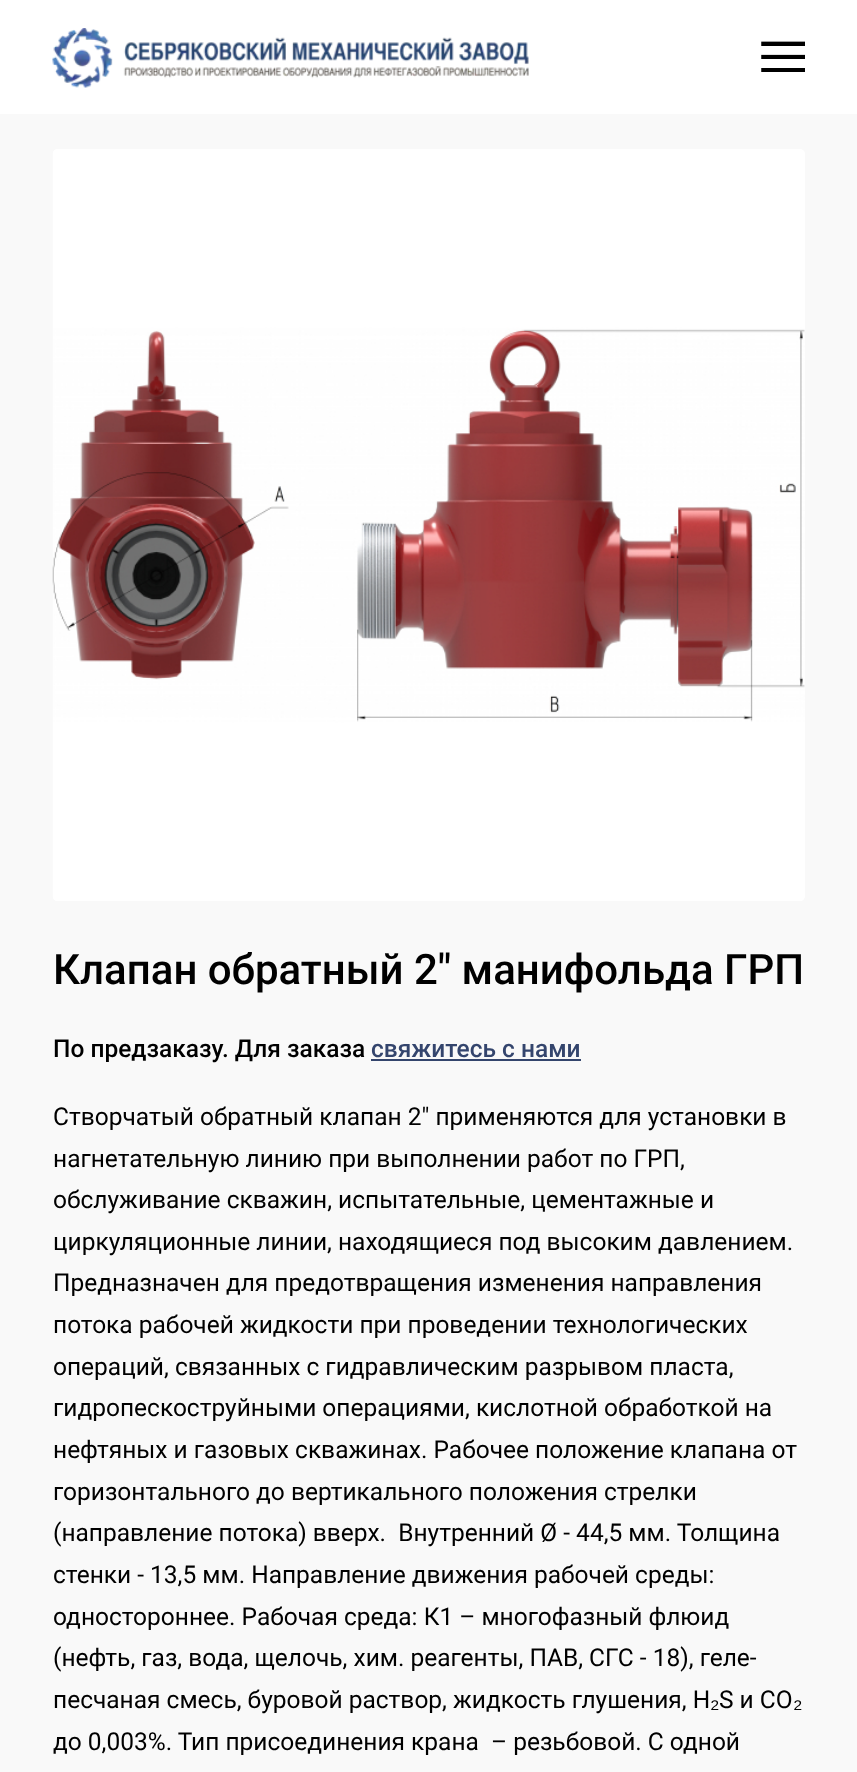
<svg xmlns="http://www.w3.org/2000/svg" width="857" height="1772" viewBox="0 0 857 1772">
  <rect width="100%" height="100%" fill="#f9f9f9"/>
  <path d="M0 0h857v114H0z" fill="#fff"/>
  <image x="52" y="28" width="477" height="60" href="img/1.png"/>
  <image x="761" y="41" width="44" height="31" href="img/2.png"/>
  <image x="52" y="149" width="753" height="752" href="img/3.png"/>
  <path d="M371 1059h210v2H371z" fill="#34456d"/>
  <text x="53" y="984" font-family="Roboto" font-size="42" font-weight="500" fill="#000">Клапан обратный 2" манифольда ГРП</text>
  <text x="53" y="1057" font-family="Roboto" font-size="24.5" font-weight="500" fill="#000">По предзаказу. Для заказа</text>
  <text x="371" y="1057" font-family="Roboto" font-size="24.5" font-weight="500" fill="#34456d">свяжитесь с нами</text>
  <g font-family="Roboto" font-size="24.5" fill="#000">
    <text x="53" y="1125">Створчатый обратный клапан 2" применяются для установки в</text>
    <text x="53" y="1167">нагнетательную линию при выполнении работ по ГРП,</text>
    <text x="53" y="1208">обслуживание скважин, испытательные, цементажные и</text>
    <text x="53" y="1250">циркуляционные линии, находящиеся под высоким давлением.</text>
    <text x="53" y="1291">Предназначен для предотвращения изменения направления</text>
    <text x="53" y="1333">потока рабочей жидкости при проведении технологических</text>
    <text x="53" y="1375">операций, связанных с гидравлическим разрывом пласта,</text>
    <text x="53" y="1416">гидропескоструйными операциями, кислотной обработкой на</text>
    <text x="53" y="1458">нефтяных и газовых скважинах. Рабочее положение клапана от</text>
    <text x="53" y="1500">горизонтального до вертикального положения стрелки</text>
    <text x="53" y="1541" xml:space="preserve">(направление потока) вверх.  Внутренний Ø - 44,5 мм. Толщина</text>
    <text x="53" y="1583">стенки - 13,5 мм. Направление движения рабочей среды:</text>
    <text x="53" y="1625">одностороннее. Рабочая среда: К1 – многофазный флюид</text>
    <text x="53" y="1666">(нефть, газ, вода, щелочь, хим. реагенты, ПАВ, СГС - 18), геле-</text>
    <text x="53" y="1708">песчаная смесь, буровой раствор, жидкость глушения, H</text>
  </g>
  <text x="710" y="1708" font-family="Liberation Sans" font-size="24.5" fill="#000">₂</text>
  <text x="719" y="1708" font-family="Roboto" font-size="24.5" fill="#000">S и CO</text>
  <text x="793" y="1708" font-family="Liberation Sans" font-size="24.5" fill="#000">₂</text>
  <text x="53" y="1750" font-family="Roboto" font-size="24.5" fill="#000" xml:space="preserve">до 0,003%. Тип присоединения крана  – резьбовой. С одной</text>
</svg>
